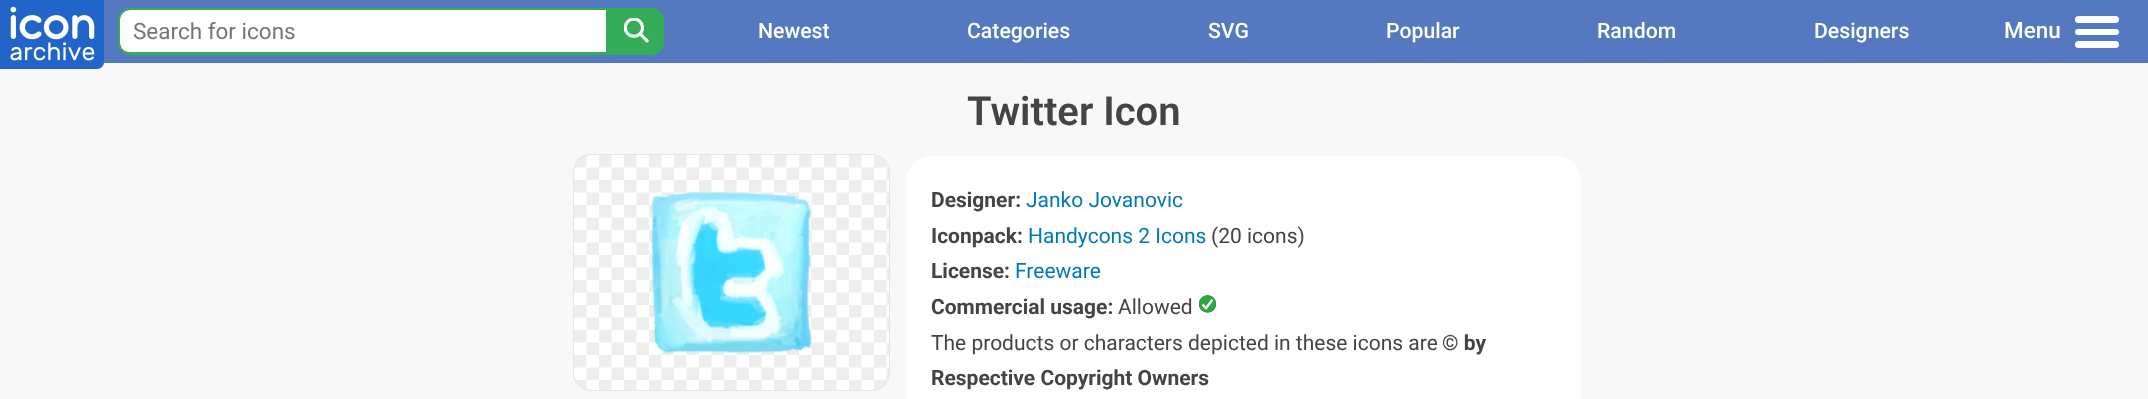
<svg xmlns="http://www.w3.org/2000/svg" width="2148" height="399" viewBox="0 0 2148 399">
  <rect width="100%" height="100%" fill="#f8f8f8"/>
  <path d="M103 0h2045v63H103z" fill="#5479c1"/>
  <image x="0" y="0" width="104" height="69" href="img/1.png"/>
  <path d="M130 10H606V53H130C124.5 53 120 48.5 120 43V20C120 14.5 124.5 10 130 10Z" fill="#fff"/>
  <path d="M130 8H606V55H130C123 55 118 49 118 42V20C118 13 123 8 130 8ZM130 10H606V52H130C124 52 120 48 120 42V20C120 14 124 10 130 10Z" fill="#34ad59" fill-rule="evenodd"/>
  <path d="M606 10H651C656.5 10 661 14.5 661 20V43C661 48.5 656.5 53 651 53H606Z" fill="#34ad59"/>
  <path d="M606 8H651C658 8 664 13 664 20V42C664 49 658 55 651 55H606ZM606 10H651C657 10 661 14 661 20V42C661 48 657 52 651 52H606Z" fill="#34ad59" fill-rule="evenodd"/>
  <image x="624" y="18" width="25" height="25" href="img/2.png"/>
  <rect x="2075" y="16" width="44" height="7" rx="3.5" fill="#fff"/>
  <rect x="2075" y="29" width="44" height="6" rx="3" fill="#fff"/>
  <rect x="2075" y="41" width="44" height="7" rx="3.5" fill="#fff"/>
  <image x="573" y="154" width="317" height="237" href="img/3.png"/>
  <rect x="573.5" y="154.5" width="316" height="236" rx="18.5" fill="none" stroke="#e5e5e5"/>
  <image x="651" y="192" width="161" height="161" href="img/4.png"/>
  <rect x="906" y="156" width="675" height="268" rx="25" fill="#fff"/>
  <image x="1199" y="295" width="17" height="18" href="img/5.png"/>
  <text x="133" y="39" font-family="Roboto" font-size="22.5" fill="#757575">Search for icons</text>
  <g font-family="Roboto" font-size="21.25" font-weight="500" fill="#fff">
    <text x="758" y="38">Newest</text>
    <text x="967" y="38">Categories</text>
    <text x="1208" y="38">SVG</text>
    <text x="1386" y="38">Popular</text>
    <text x="1597" y="38">Random</text>
    <text x="1814" y="38">Designers</text>
  </g>
  <text x="2004" y="38" font-family="Roboto" font-size="22.5" font-weight="500" fill="#fff">Menu</text>
  <text x="967" y="125" font-family="Roboto" font-size="40" font-weight="600" fill="#444">Twitter Icon</text>
  <text x="931" y="207" font-family="Roboto" font-size="21" font-weight="bold" fill="#444">Designer:</text>
  <text x="1026" y="207" font-family="Roboto" font-size="21" fill="#0277bd">Janko Jovanovic</text>
  <text x="931" y="243" font-family="Roboto" font-size="21" font-weight="bold" fill="#444">Iconpack:</text>
  <text x="1028" y="243" font-family="Roboto" font-size="21" fill="#0277bd">Handycons 2 Icons</text>
  <text x="1211" y="243" font-family="Roboto" font-size="21" fill="#444">(20 icons)</text>
  <text x="931" y="278" font-family="Roboto" font-size="21" font-weight="bold" fill="#444">License:</text>
  <text x="1015" y="278" font-family="Roboto" font-size="21" fill="#0277bd">Freeware</text>
  <text x="931" y="314" font-family="Roboto" font-size="21" font-weight="bold" fill="#444">Commercial usage:</text>
  <g font-family="Roboto" font-size="21" fill="#444">
    <text x="1118" y="314">Allowed</text>
    <text x="931" y="350">The products or characters depicted in these icons are</text>
  </g>
  <g font-family="Roboto" font-size="21" font-weight="bold" fill="#444">
    <text x="1442" y="350">© by</text>
    <text x="931" y="385">Respective Copyright Owners</text>
  </g>
</svg>
